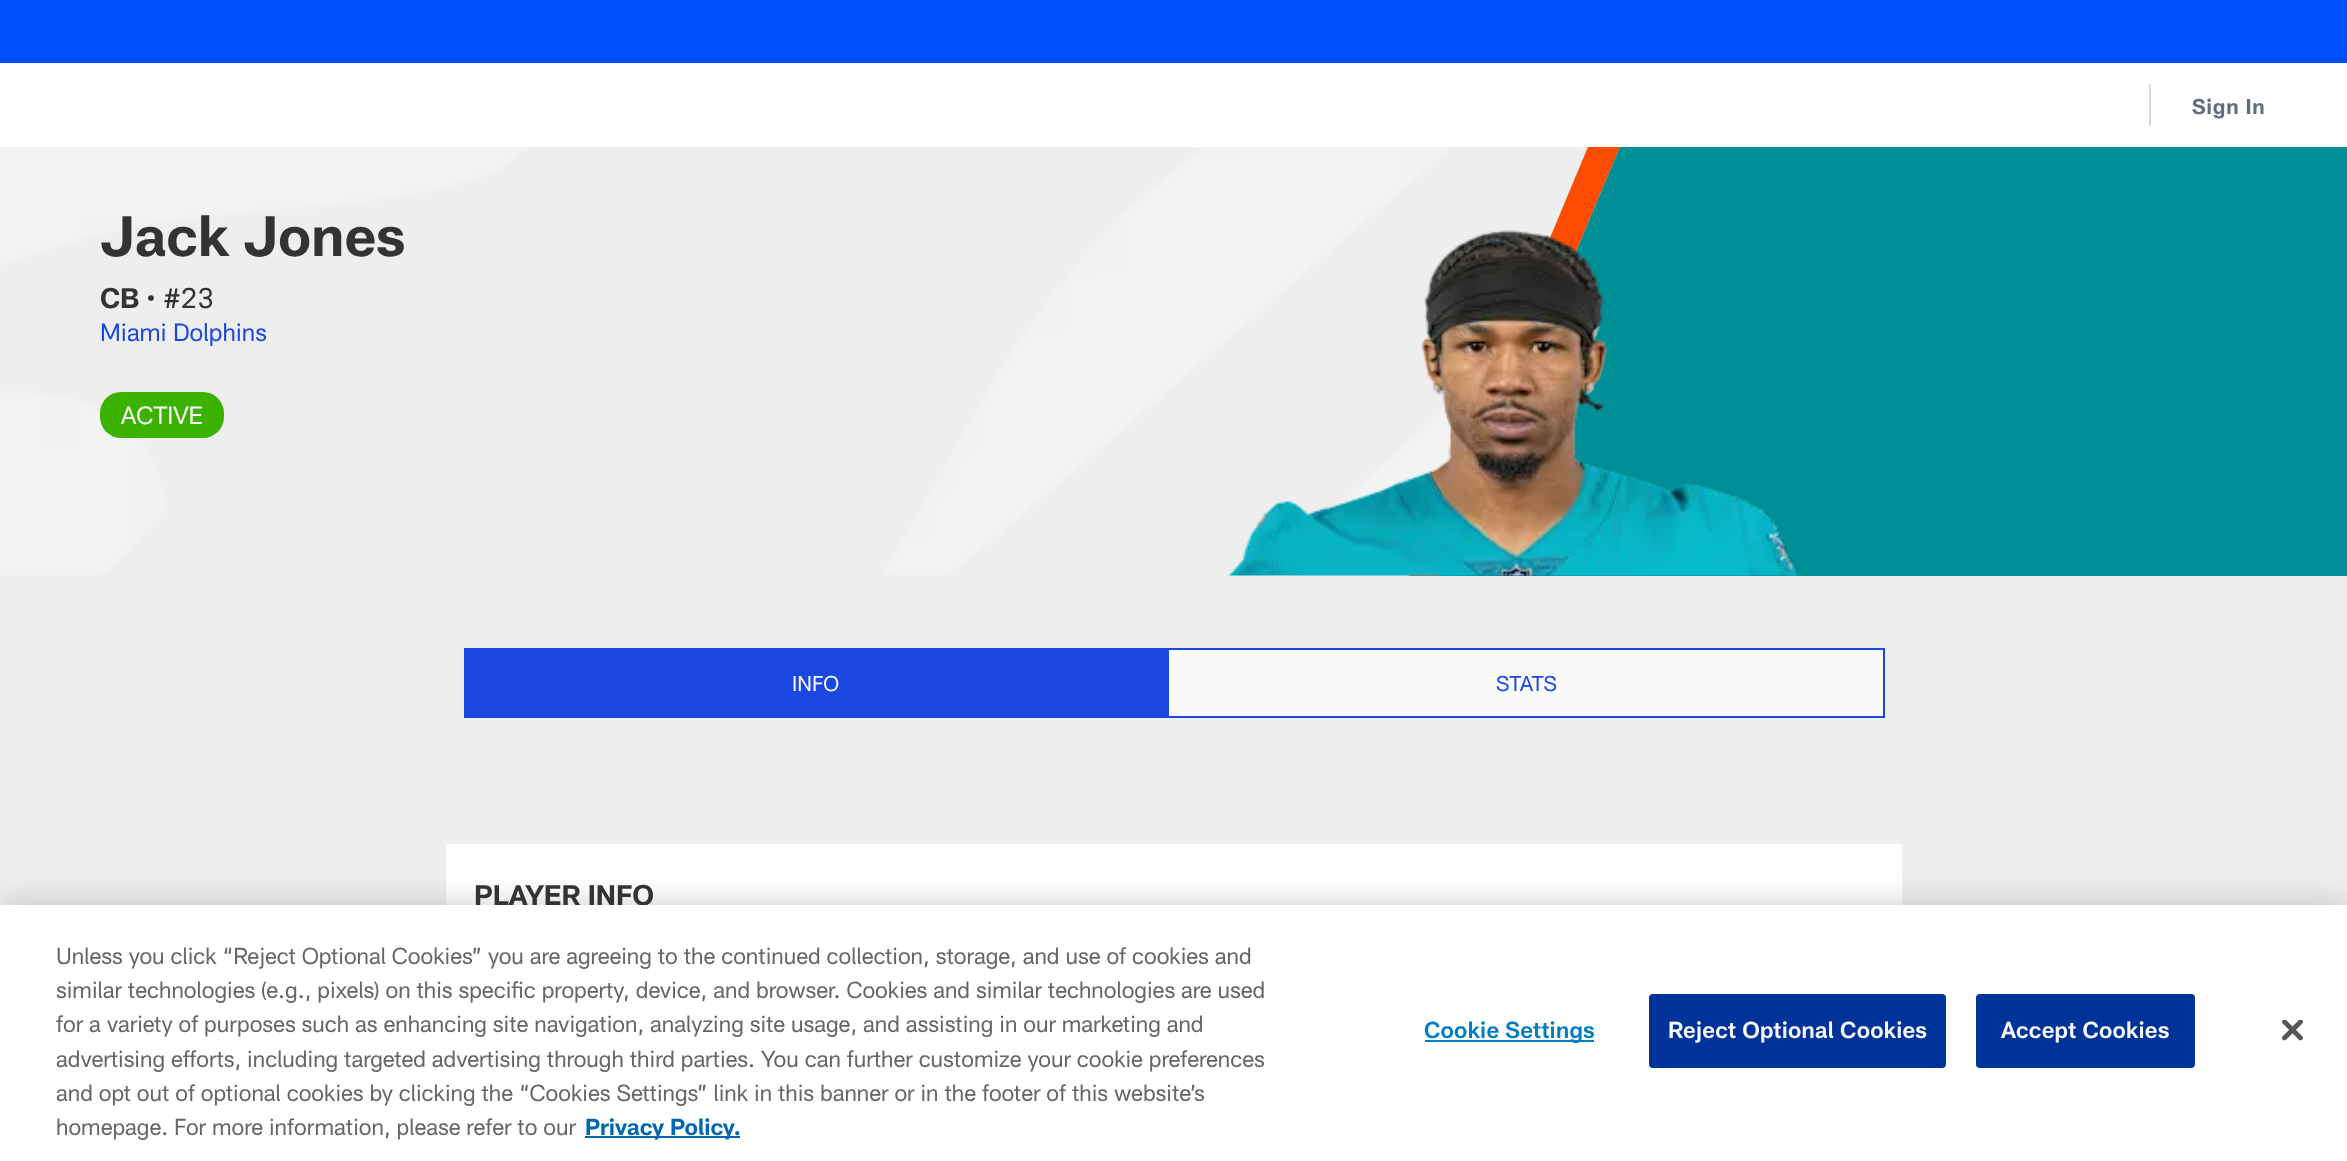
<svg xmlns="http://www.w3.org/2000/svg" width="2347" height="1161" viewBox="0 0 2347 1161">
  <rect width="100%" height="100%" fill="#eee"/>
  <path d="M0 0h2347v63H0z" fill="#004fff"/>
  <image x="0" y="147" width="1459" height="428" href="img/1.png"/>
  <path d="M1627 130L1440 576H1409L1595 130Z" fill="#fc4c02"/>
  <path d="M1440 576L1627 130H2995V576Z" fill="#008e97"/>
  <path d="M0 63h2347v84H0z" fill="#fff"/>
  <path d="M2149 84h2v42H2149z" fill="#d2dae1"/>
  <image x="1227" y="230" width="571" height="346" href="img/2.png"/>
  <rect x="100" y="392" width="124" height="46" rx="21" fill="#3cb200"/>
  <path d="M464 648h703v70H464z" fill="#1b48e0"/>
  <path d="M1168 649h716v68H1168z" fill="#fafafa" stroke="#1b48e0" stroke-width="2"/>
  <path d="M446 844h1456v61H446z" fill="#fff"/>
  <path d="M0 905h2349v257H0z" fill="#00000033" filter="blur(16px)"/>
  <text x="2192" y="114" font-family="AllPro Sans" font-size="21" font-weight="bold" letter-spacing="0.75" fill="#626c80">Sign In</text>
  <text x="100" y="256" font-family="AllPro Sans" font-size="56" font-weight="bold" fill="#333">Jack Jones</text>
  <text x="100" y="308" font-family="AllPro Sans" font-size="28" font-weight="bold" fill="#333">CB</text>
  <text x="146" y="308" font-family="AllPro Sans" font-size="28" fill="#333">• #23</text>
  <text x="100" y="341" font-family="AllPro Sans" font-size="24.5" fill="#1b48e0">Miami Dolphins</text>
  <text x="121" y="424" font-family="AllPro Sans" font-size="24.5" fill="#fafafa">ACTIVE</text>
  <text x="792" y="691" font-family="AllPro Sans" font-size="21" fill="#fafafa">INFO</text>
  <text x="1496" y="691" font-family="AllPro Sans" font-size="21" fill="#1b48e0">STATS</text>
  <text x="474" y="905" font-family="AllPro Sans" font-size="28" font-weight="bold" fill="#333">PLAYER INFO</text>
  <path d="M0 905h2347v256H0z" fill="#fff"/>
  <g font-family="AllPro Sans" font-size="22.75" fill="#666">
    <text x="56" y="964">Unless you click “Reject Optional Cookies” you are agreeing to the continued collection, storage, and use of cookies and</text>
    <text x="56" y="998">similar technologies (e.g., pixels) on this specific property, device, and browser. Cookies and similar technologies are used</text>
    <text x="56" y="1032">for a variety of purposes such as enhancing site navigation, analyzing site usage, and assisting in our marketing and</text>
    <text x="56" y="1067">advertising efforts, including targeted advertising through third parties. You can further customize your cookie preferences</text>
    <text x="56" y="1101">and opt out of optional cookies by clicking the “Cookies Settings” link in this banner or in the footer of this website’s</text>
    <text x="56" y="1135">homepage. For more information, please refer to our</text>
  </g>
  <path d="M585 1136h155v2H585z" fill="#0067b1"/>
  <text x="585" y="1135" font-family="AllPro Sans" font-size="22.75" font-weight="bold" fill="#0067b1">Privacy Policy.</text>
  <path d="M1425 1040h169v2H1425z" fill="#007dc3"/>
  <text x="1424" y="1038" font-family="AllPro Sans" font-size="22.75" font-weight="600" letter-spacing="0.25" fill="#007dc3">Cookie Settings</text>
  <rect x="1650" y="995" width="295" height="72" rx="3" fill="#039" stroke="#039" stroke-width="2"/>
  <text x="1668" y="1038" font-family="AllPro Sans" font-size="22.75" font-weight="600" letter-spacing="0.25" fill="#fafafa">Reject Optional Cookies</text>
  <rect x="1977" y="995" width="217" height="72" rx="3" fill="#039" stroke="#039" stroke-width="2"/>
  <text x="2001" y="1038" font-family="AllPro Sans" font-size="22.75" font-weight="600" letter-spacing="0.25" fill="#fafafa">Accept Cookies</text>
  <image x="2282" y="1020" width="21" height="21" href="img/3.png"/>
</svg>
